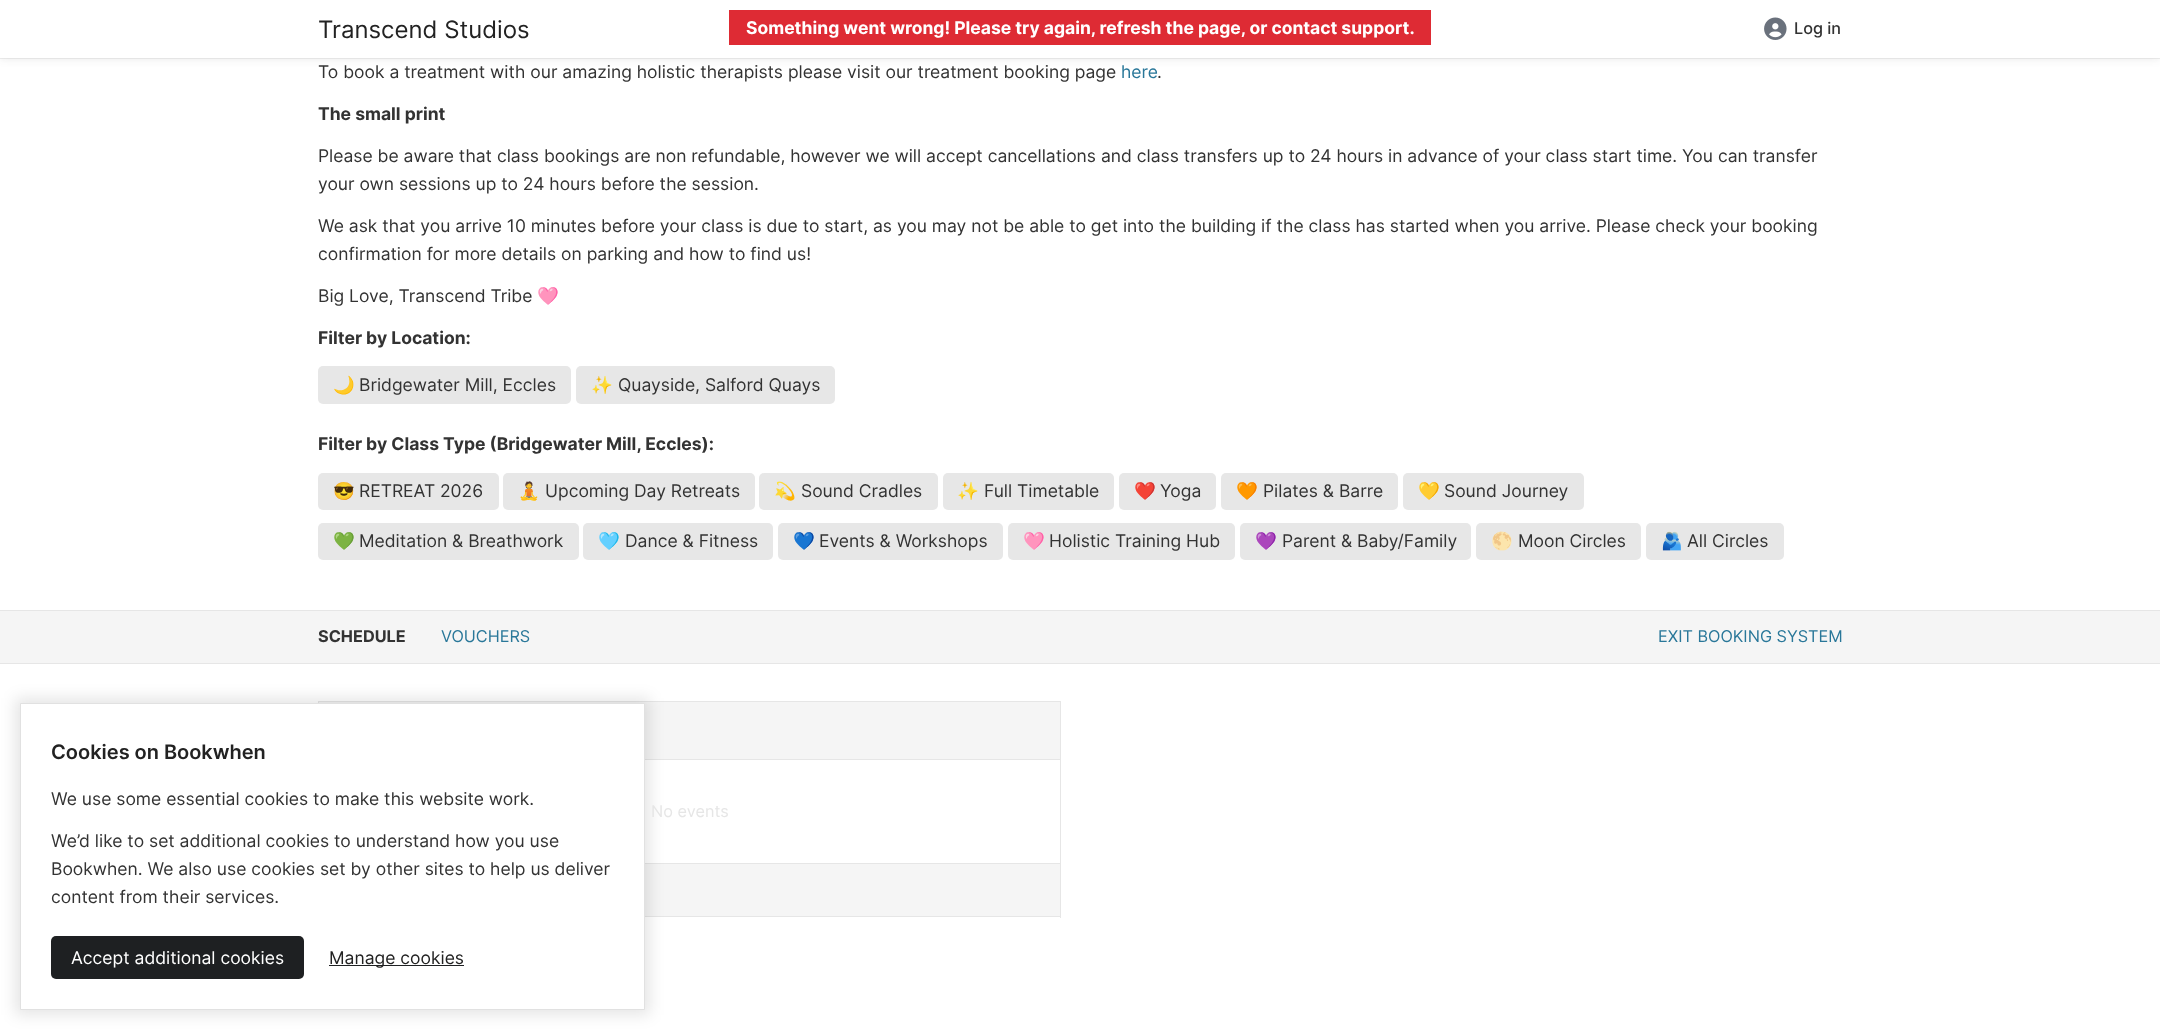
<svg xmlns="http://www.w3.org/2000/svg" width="2160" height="1030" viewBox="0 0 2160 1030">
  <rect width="100%" height="100%" fill="#fff"/>
  <path d="M0 1h2160v58H0z" fill="#3232321a" filter="blur(4px)"/>
  <path d="M0 58h2160v1H0z" fill="#6464641a"/>
  <path d="M0 0h2160v58H0z" fill="#fff"/>
  <image x="1764" y="17" width="23" height="23" href="img/1.png"/>
  <path d="M729 10h702v35H729z" fill="#de2b34"/>
  <rect x="318" y="366" width="253" height="38" rx="5" fill="#e7e7e7"/>
  <rect x="576" y="366" width="259" height="38" rx="5" fill="#e7e7e7"/>
  <rect x="318" y="473" width="181" height="37" rx="5" fill="#e7e7e7"/>
  <rect x="503" y="473" width="252" height="37" rx="5" fill="#e7e7e7"/>
  <rect x="759" y="473" width="179" height="37" rx="5" fill="#e7e7e7"/>
  <rect x="943" y="473" width="171" height="37" rx="5" fill="#e7e7e7"/>
  <rect x="1119" y="473" width="97" height="37" rx="5" fill="#e7e7e7"/>
  <rect x="1221" y="473" width="177" height="37" rx="5" fill="#e7e7e7"/>
  <rect x="1403" y="473" width="181" height="37" rx="5" fill="#e7e7e7"/>
  <rect x="318" y="523" width="261" height="37" rx="5" fill="#e7e7e7"/>
  <rect x="583" y="523" width="190" height="37" rx="5" fill="#e7e7e7"/>
  <rect x="778" y="523" width="225" height="37" rx="5" fill="#e7e7e7"/>
  <rect x="1008" y="523" width="227" height="37" rx="5" fill="#e7e7e7"/>
  <rect x="1240" y="523" width="231" height="37" rx="5" fill="#e7e7e7"/>
  <rect x="1476" y="523" width="165" height="37" rx="5" fill="#e7e7e7"/>
  <rect x="1646" y="523" width="138" height="37" rx="5" fill="#e7e7e7"/>
  <path d="M0 611h2160v52H0z" fill="#f5f5f5"/>
  <path d="M0 610h2160v1H0z" fill="#e6e6e6"/>
  <path d="M0 663h2160v1H0z" fill="#e6e6e6"/>
  <path d="M318 701h743v1H318z" fill="#e6e6e6"/>
  <path d="M1060 701h1v217H1060z" fill="#e6e6e6"/>
  <path d="M645 916h416v1H645z" fill="#e6e6e6"/>
  <path d="M318 701h1v2H318z" fill="#e6e6e6"/>
  <path d="M319 702h741v57H319z" fill="#f5f5f5"/>
  <path d="M645 759h416v1H645z" fill="#e6e6e6"/>
  <path d="M645 864h415v52H645z" fill="#f5f5f5"/>
  <path d="M645 863h416v1H645z" fill="#e6e6e6"/>
  <path d="M15 698h635v317H15z" fill="#0000001a" filter="blur(7.5px)"/>
  <path d="M20.5 703.5h624v306H20.5z" fill="#fff" stroke="#e1e1e1"/>
  <rect x="51" y="936" width="253" height="43" rx="5" fill="#1e2022"/>
  <path d="M329 965h135v1H329z" fill="#1e2022"/>
  <text x="318" y="38" font-family="Inter" font-size="24" fill="#222">Transcend Studios</text>
  <text x="1794" y="34" font-family="Inter" font-size="16.25" font-weight="500" fill="#333">Log in</text>
  <text x="746" y="34" font-family="Inter" font-size="17.5" font-weight="bold" fill="#fff">Something went wrong! Please try again, refresh the page, or contact support.</text>
  <text x="318" y="78" font-family="Inter" font-size="17.5" fill="#333">To book a treatment with our amazing holistic therapists please visit our treatment booking page</text>
  <text x="1121" y="78" font-family="Inter" font-size="17.5" fill="#297799">here</text>
  <text x="1157" y="78" font-family="Inter" font-size="17.5" fill="#333">.</text>
  <text x="318" y="120" font-family="Inter" font-size="17.5" font-weight="bold" fill="#333">The small print</text>
  <g font-family="Inter" font-size="17.5" fill="#333">
    <text x="318" y="162">Please be aware that class bookings are non refundable, however we will accept cancellations and class transfers up to 24 hours in advance of your class start time. You can transfer</text>
    <text x="318" y="190">your own sessions up to 24 hours before the session.</text>
    <text x="318" y="232">We ask that you arrive 10 minutes before your class is due to start, as you may not be able to get into the building if the class has started when you arrive. Please check your booking</text>
    <text x="318" y="260">confirmation for more details on parking and how to find us!</text>
    <text x="318" y="302">Big Love, Transcend Tribe</text>
  </g>
  <text x="537" y="302" font-family="Noto Color Emoji" font-size="17.5" fill="#333">🩷</text>
  <text x="318" y="344" font-family="Inter" font-size="17.5" font-weight="bold" fill="#333">Filter by Location:</text>
  <text x="333" y="391" font-family="Noto Color Emoji" font-size="17.5" fill="#333">🌙</text>
  <text x="359" y="391" font-family="Inter" font-size="17.5" fill="#333">Bridgewater Mill, Eccles</text>
  <text x="591" y="391" font-family="Noto Color Emoji" font-size="17.5" fill="#333">✨</text>
  <text x="618" y="391" font-family="Inter" font-size="17.5" fill="#333">Quayside, Salford Quays</text>
  <text x="318" y="450" font-family="Inter" font-size="17.5" font-weight="bold" fill="#333">Filter by Class Type (Bridgewater Mill, Eccles):</text>
  <text x="333" y="497" font-family="Noto Color Emoji" font-size="17.5" fill="#333">😎</text>
  <text x="359" y="497" font-family="Inter" font-size="17.5" fill="#333">RETREAT 2026</text>
  <text x="518" y="497" font-family="Noto Color Emoji" font-size="17.5" fill="#333">🧘</text>
  <text x="545" y="497" font-family="Inter" font-size="17.5" fill="#333">Upcoming Day Retreats</text>
  <text x="774" y="497" font-family="Noto Color Emoji" font-size="17.5" fill="#333">💫</text>
  <text x="801" y="497" font-family="Inter" font-size="17.5" fill="#333">Sound Cradles</text>
  <text x="957" y="497" font-family="Noto Color Emoji" font-size="17.5" fill="#333">✨</text>
  <text x="984" y="497" font-family="Inter" font-size="17.5" fill="#333">Full Timetable</text>
  <text x="1134" y="497" font-family="Noto Color Emoji" font-size="17.5" fill="#333">❤️</text>
  <text x="1160" y="497" font-family="Inter" font-size="17.5" fill="#333">Yoga</text>
  <text x="1236" y="497" font-family="Noto Color Emoji" font-size="17.5" fill="#333">🧡</text>
  <text x="1263" y="497" font-family="Inter" font-size="17.5" fill="#333">Pilates &amp; Barre</text>
  <text x="1418" y="497" font-family="Noto Color Emoji" font-size="17.5" fill="#333">💛</text>
  <text x="1444" y="497" font-family="Inter" font-size="17.5" fill="#333">Sound Journey</text>
  <text x="333" y="547" font-family="Noto Color Emoji" font-size="17.5" fill="#333">💚</text>
  <text x="359" y="547" font-family="Inter" font-size="17.5" fill="#333">Meditation &amp; Breathwork</text>
  <text x="598" y="547" font-family="Noto Color Emoji" font-size="17.5" fill="#333">🩵</text>
  <text x="625" y="547" font-family="Inter" font-size="17.5" fill="#333">Dance &amp; Fitness</text>
  <text x="793" y="547" font-family="Noto Color Emoji" font-size="17.5" fill="#333">💙</text>
  <text x="819" y="547" font-family="Inter" font-size="17.5" fill="#333">Events &amp; Workshops</text>
  <text x="1023" y="547" font-family="Noto Color Emoji" font-size="17.5" fill="#333">🩷</text>
  <text x="1049" y="547" font-family="Inter" font-size="17.5" fill="#333">Holistic Training Hub</text>
  <text x="1255" y="547" font-family="Noto Color Emoji" font-size="17.5" fill="#333">💜</text>
  <text x="1282" y="547" font-family="Inter" font-size="17.5" fill="#333">Parent &amp; Baby/Family</text>
  <text x="1491" y="547" font-family="Noto Color Emoji" font-size="17.5" fill="#333">🌕</text>
  <text x="1518" y="547" font-family="Inter" font-size="17.5" fill="#333">Moon Circles</text>
  <text x="1661" y="547" font-family="Noto Color Emoji" font-size="17.5" fill="#333">🫂</text>
  <text x="1687" y="547" font-family="Inter" font-size="17.5" fill="#333">All Circles</text>
  <text x="318" y="642" font-family="Inter" font-size="16.25" font-weight="bold" fill="#333">SCHEDULE</text>
  <g font-family="Inter" font-size="16.25" fill="#297799">
    <text x="441" y="642">VOUCHERS</text>
    <text x="1658" y="642">EXIT BOOKING SYSTEM</text>
  </g>
  <text x="651" y="817" font-family="Inter" font-size="16.25" fill="#e6e6e6">No events</text>
  <text x="51" y="759" font-family="Inter" font-size="20" font-weight="600" fill="#222">Cookies on Bookwhen</text>
  <g font-family="Inter" font-size="17.5" fill="#333">
    <text x="51" y="805">We use some essential cookies to make this website work.</text>
    <text x="51" y="847">We’d like to set additional cookies to understand how you use</text>
    <text x="51" y="875">Bookwhen. We also use cookies set by other sites to help us deliver</text>
    <text x="51" y="903">content from their services.</text>
  </g>
  <text x="71" y="964" font-family="Inter" font-size="17.5" fill="#fff">Accept additional cookies</text>
  <text x="329" y="964" font-family="Inter" font-size="17.5" fill="#222">Manage cookies</text>
</svg>
